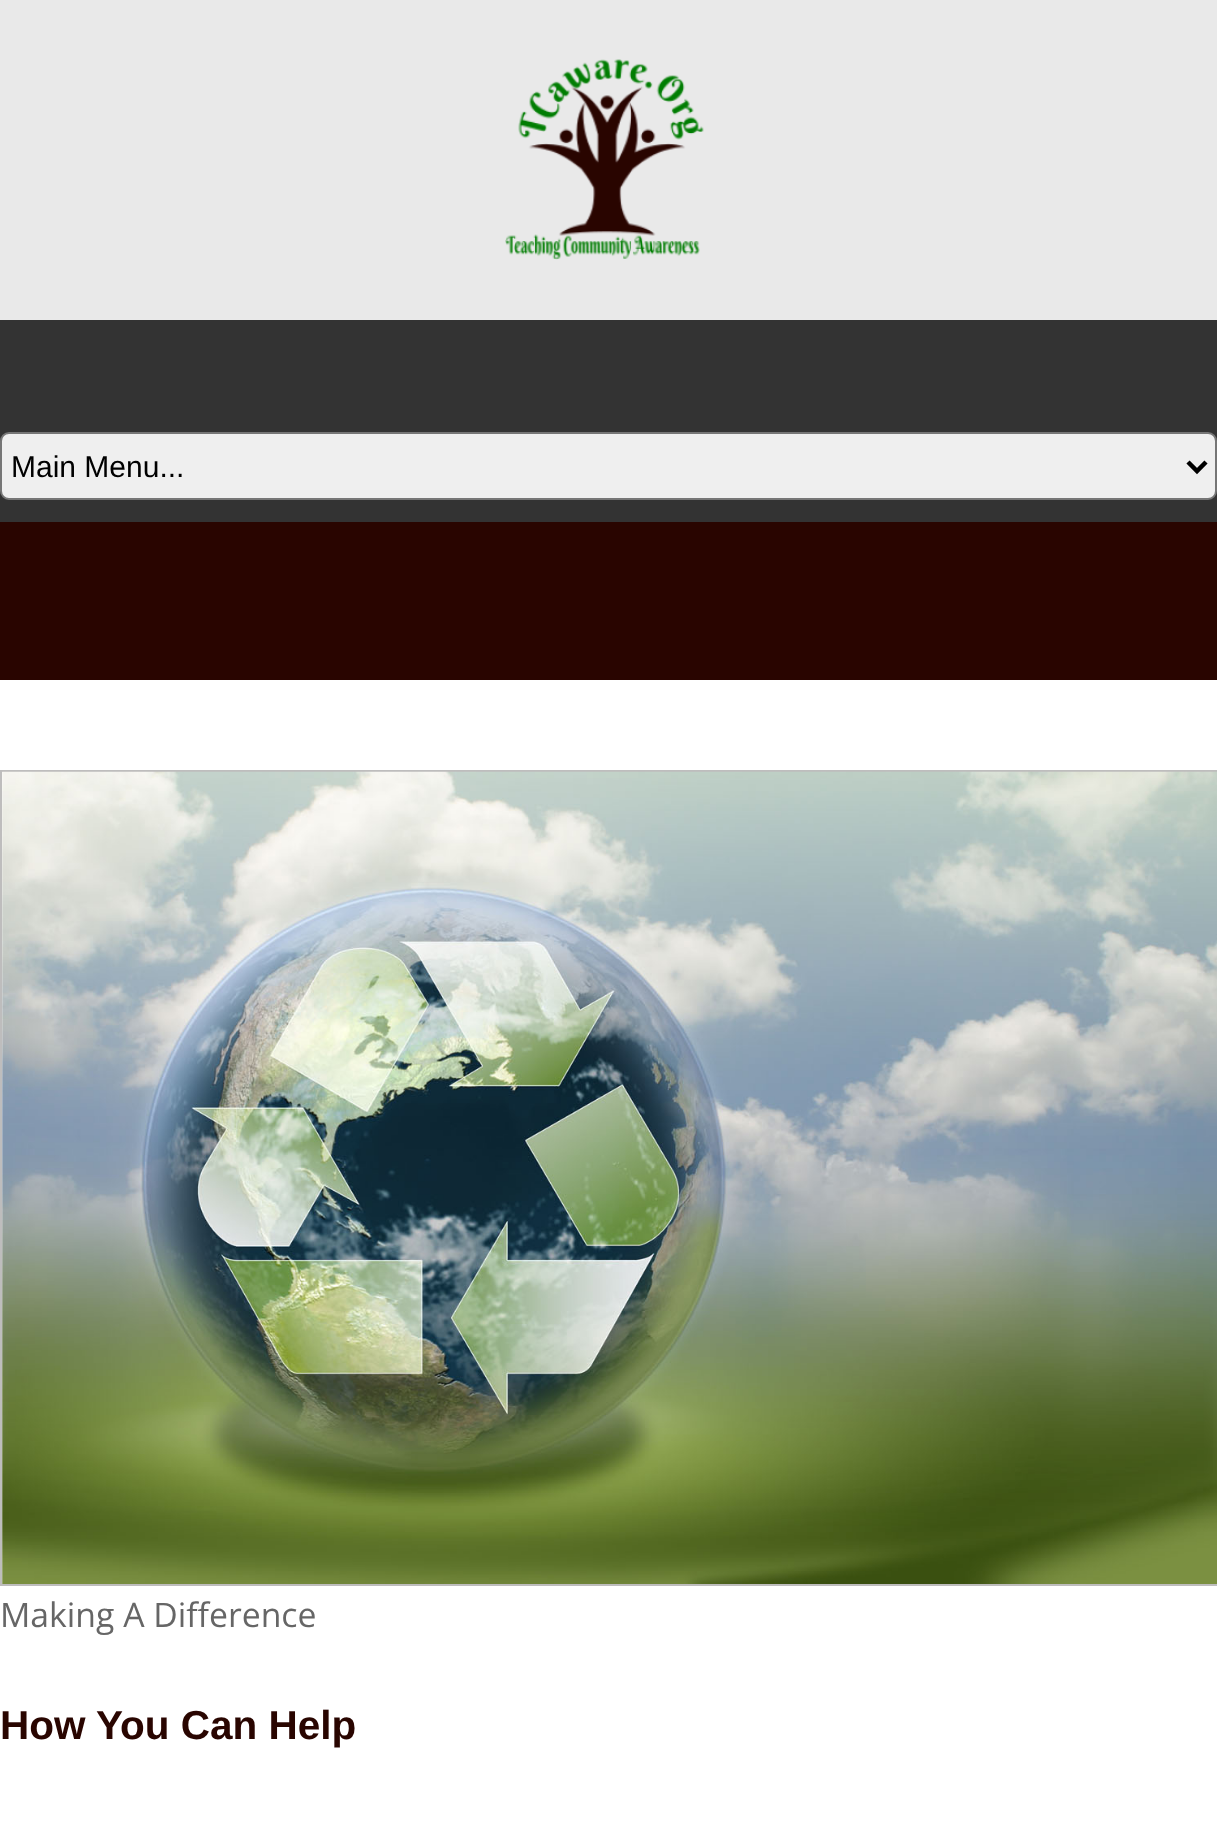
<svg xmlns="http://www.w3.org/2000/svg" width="1217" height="1828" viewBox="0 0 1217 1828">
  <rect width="100%" height="100%" fill="#fff"/>
  <path d="M0 320h1217v202H0z" fill="#333"/>
  <path d="M0 522h1217v158H0z" fill="#290500"/>
  <path d="M0 0h1217v320H0z" fill="#e9e9e9"/>
  <image x="505" y="59" width="199" height="201" href="img/1.png"/>
  <rect x="1" y="433" width="1215" height="66" rx="8" fill="#efefef" stroke="#767676" stroke-width="2"/>
  <path d="M1188 462L1197 471L1206 462" fill="none" stroke="#000" stroke-width="4.5"/>
  <path d="M1 771h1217v814H1z" fill="none" stroke="#bebdbd" stroke-width="2"/>
  <image x="2" y="771" width="1215" height="813" href="img/2.png"/>
  <text x="11" y="477" font-family="Liberation Sans" font-size="30" fill="#000">Main Menu...</text>
  <text x="0" y="1627" font-family="Open Sans" font-size="33.75" fill="#666">Making A Difference</text>
  <text x="0" y="1739" font-family="Liberation Sans" font-size="40.5" font-weight="bold" fill="#290500">How You Can Help</text>
</svg>
